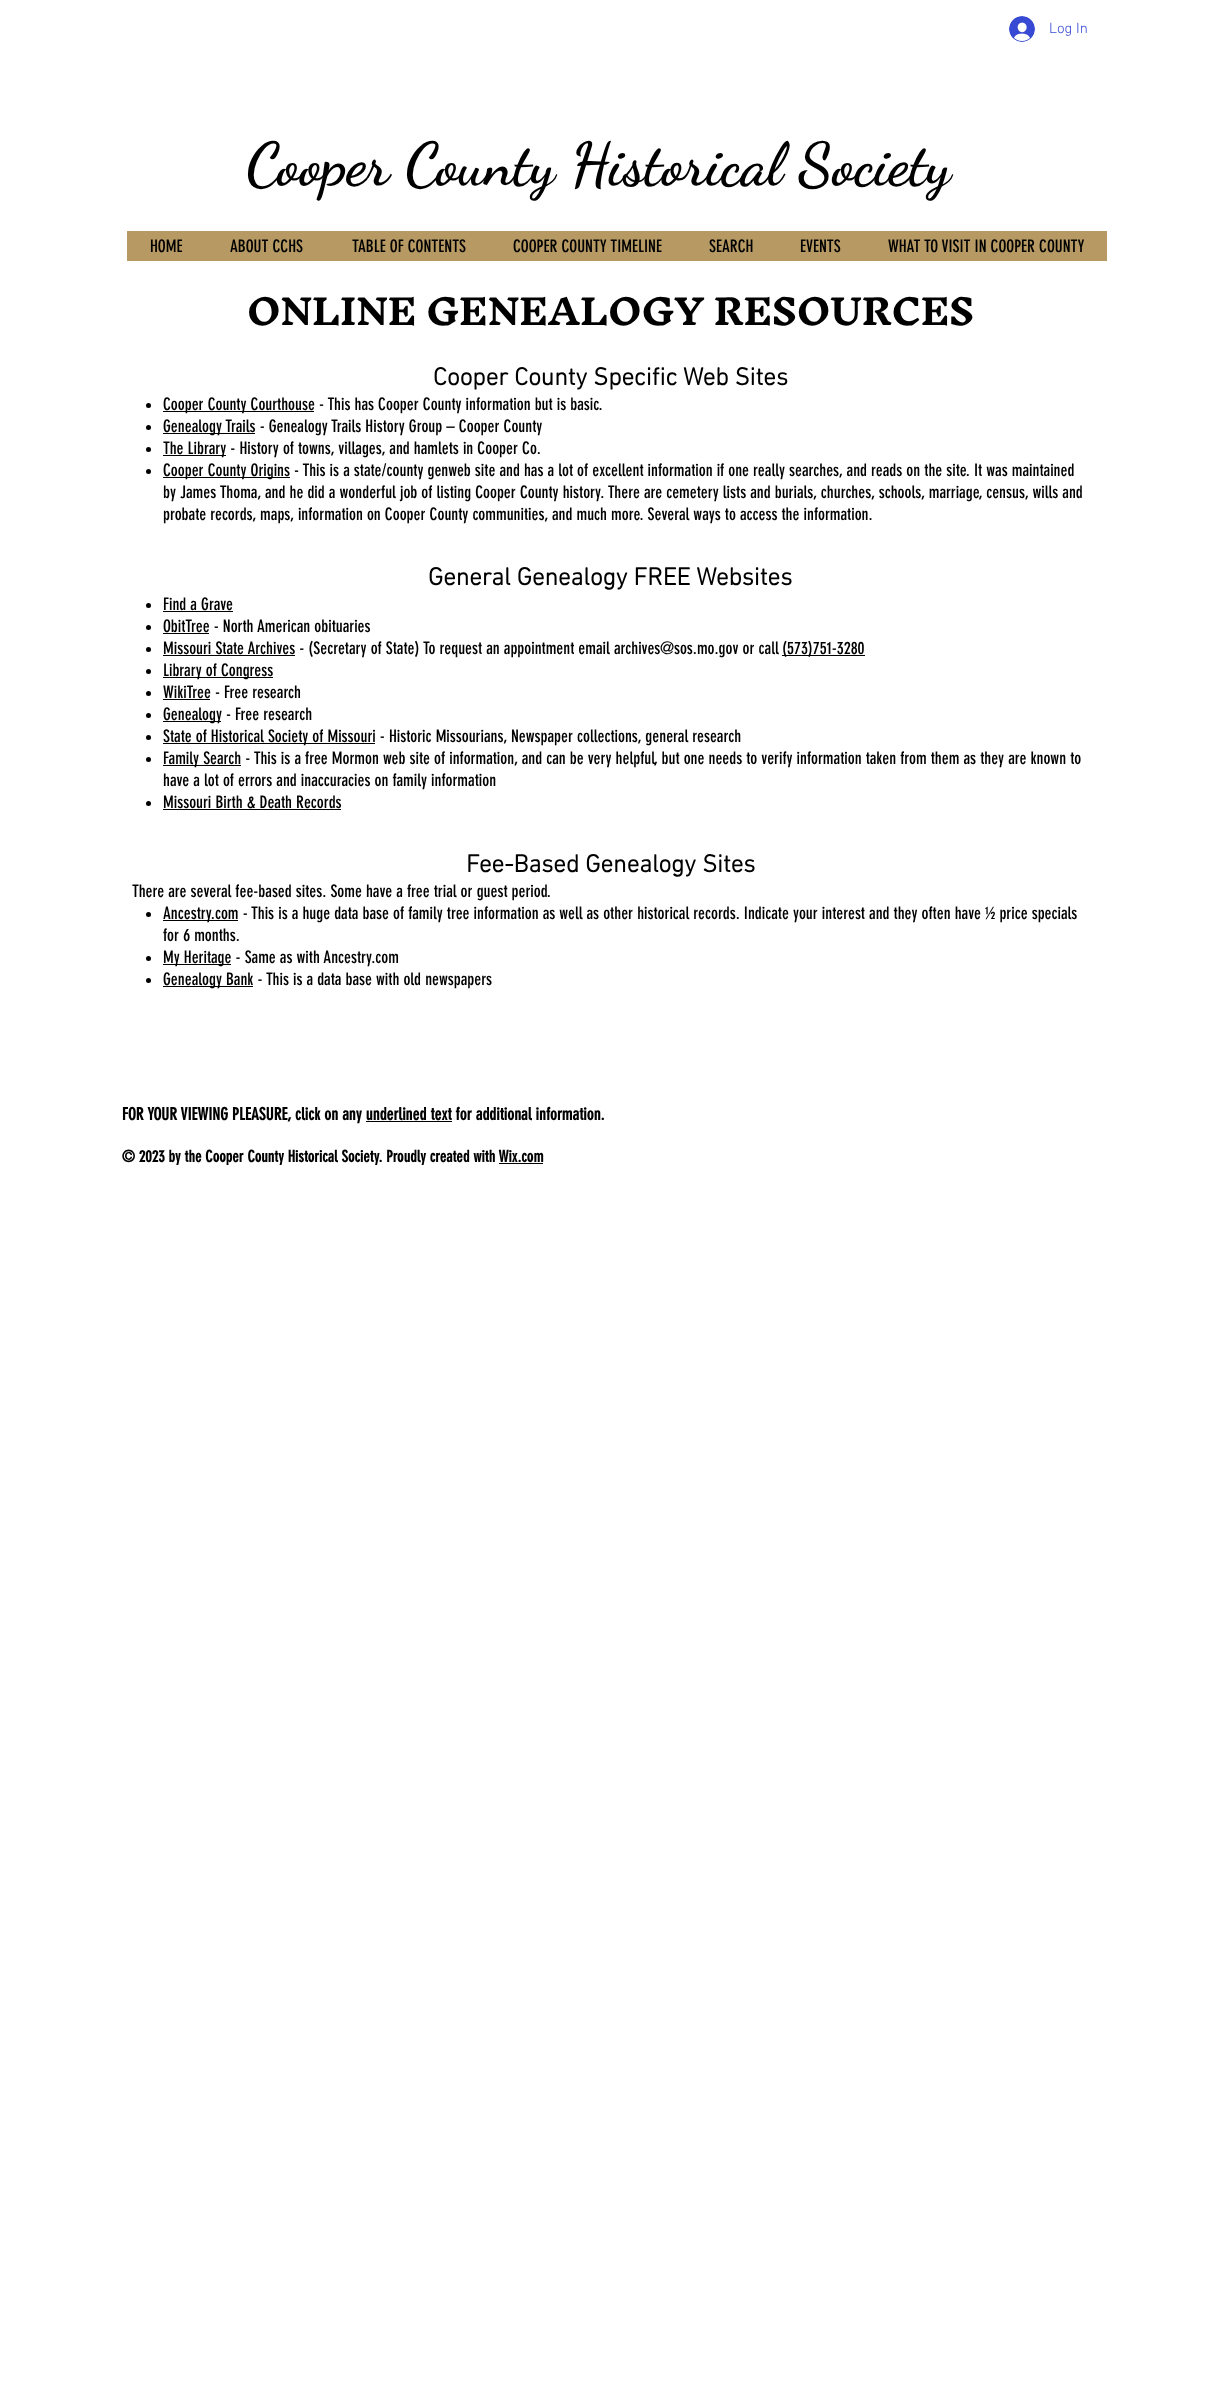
<svg xmlns="http://www.w3.org/2000/svg" width="1224" height="2396" viewBox="0 0 1224 2396">
  <rect width="100%" height="100%" fill="#fff"/>
  <image x="1009" y="16" width="26" height="26" href="img/1.png"/>
  <path d="M127 231h980v30H127z" fill="#b69963"/>
  <circle cx="148.5" cy="405.5" r="2.5" fill="#000"/>
  <path d="M163 411h151v1H163z" fill="#000"/>
  <circle cx="148.5" cy="427.5" r="2.5" fill="#000"/>
  <path d="M163 433h92v1H163z" fill="#000"/>
  <circle cx="148.5" cy="449.5" r="2.5" fill="#000"/>
  <path d="M163 455h63v1H163z" fill="#000"/>
  <circle cx="148.5" cy="471.5" r="2.5" fill="#000"/>
  <path d="M163 477h127v1H163z" fill="#000"/>
  <circle cx="148.5" cy="605.5" r="2.5" fill="#000"/>
  <path d="M163 611h70v1H163z" fill="#000"/>
  <circle cx="148.5" cy="627.5" r="2.5" fill="#000"/>
  <path d="M163 633h46v1H163z" fill="#000"/>
  <circle cx="148.5" cy="649.5" r="2.5" fill="#000"/>
  <path d="M163 655h132v1H163z" fill="#000"/>
  <path d="M782 655h83v1H782z" fill="#000"/>
  <circle cx="148.5" cy="671.5" r="2.5" fill="#000"/>
  <path d="M163 677h110v1H163z" fill="#000"/>
  <circle cx="148.5" cy="693.5" r="2.5" fill="#000"/>
  <path d="M163 699h47v1H163z" fill="#000"/>
  <circle cx="148.5" cy="715.5" r="2.5" fill="#000"/>
  <path d="M163 721h58v1H163z" fill="#000"/>
  <circle cx="148.5" cy="737.5" r="2.5" fill="#000"/>
  <path d="M163 743h212v1H163z" fill="#000"/>
  <circle cx="148.5" cy="759.5" r="2.5" fill="#000"/>
  <path d="M163 765h78v1H163z" fill="#000"/>
  <circle cx="148.5" cy="803.5" r="2.5" fill="#000"/>
  <path d="M163 809h178v1H163z" fill="#000"/>
  <circle cx="148.5" cy="914.5" r="2.5" fill="#000"/>
  <path d="M163 920h75v1H163z" fill="#000"/>
  <circle cx="148.5" cy="958.5" r="2.5" fill="#000"/>
  <path d="M163 964h68v1H163z" fill="#000"/>
  <circle cx="148.5" cy="980.5" r="2.5" fill="#000"/>
  <path d="M163 986h90v1H163z" fill="#000"/>
  <path d="M366 1121h86v1H366z" fill="#000"/>
  <path d="M499 1163h44v1H499z" fill="#000"/>
  <text x="1049" y="33" font-family="'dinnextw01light'" font-size="15" font-weight="300" fill="#384ad3">Log In</text>
  <text x="246" y="184" font-family="Dancing Script" font-size="60" font-weight="bold" fill="#000">Cooper County Historical Society</text>
  <g font-family="'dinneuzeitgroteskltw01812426'" font-size="17" fill="#000">
    <text x="150" y="252">HOME</text>
    <text x="230" y="252">ABOUT CCHS</text>
    <text x="352" y="252">TABLE OF CONTENTS</text>
    <text x="513" y="252">COOPER COUNTY TIMELINE</text>
    <text x="709" y="252">SEARCH</text>
    <text x="800" y="252">EVENTS</text>
    <text x="888" y="252">WHAT TO VISIT IN COOPER COUNTY</text>
  </g>
  <text x="247" y="325" font-family="Inknut Antiqua" font-size="35" font-weight="bold" fill="#000">ONLINE GENEALOGY RESOURCES</text>
  <text x="433" y="385" font-family="'dinnextw01light'" font-size="25" font-weight="bold" fill="#000">Cooper County Specific Web Sites</text>
  <g font-family="'dinneuzeitgroteskltw01812426'" font-size="17" fill="#000">
    <text x="163" y="410">Cooper County Courthouse - This has Cooper County information but is basic.</text>
    <text x="163" y="432">Genealogy Trails - Genealogy Trails History Group – Cooper County</text>
    <text x="163" y="454">The Library - History of towns, villages, and hamlets in Cooper Co.</text>
    <text x="163" y="476">Cooper County Origins - This is a state/county genweb site and has a lot of excellent information if one really searches, and reads on the site. It was maintained</text>
    <text x="163" y="498">by James Thoma, and he did a wonderful job of listing Cooper County history. There are cemetery lists and burials, churches, schools, marriage, census, wills and</text>
    <text x="163" y="520">probate records, maps, information on Cooper County communities, and much more. Several ways to access the information.</text>
  </g>
  <text x="428" y="585" font-family="'dinnextw01light'" font-size="25" font-weight="bold" fill="#000">General Genealogy FREE Websites</text>
  <g font-family="'dinneuzeitgroteskltw01812426'" font-size="17" fill="#000">
    <text x="163" y="610">Find a Grave</text>
    <text x="163" y="632">ObitTree - North American obituaries</text>
    <text x="163" y="654">Missouri State Archives - (Secretary of State) To request an appointment email archives@sos.mo.gov or call</text>
    <text x="782" y="654">(573)751-3280</text>
    <text x="163" y="676">Library of Congress</text>
    <text x="163" y="698">WikiTree - Free research</text>
    <text x="163" y="720">Genealogy - Free research</text>
    <text x="163" y="742">State of Historical Society of Missouri - Historic Missourians, Newspaper collections, general research</text>
    <text x="163" y="764">Family Search - This is a free Mormon web site of information, and can be very helpful, but one needs to verify information taken from them as they are known to</text>
    <text x="163" y="786">have a lot of errors and inaccuracies on family information</text>
    <text x="163" y="808">Missouri Birth &amp; Death Records</text>
  </g>
  <text x="466" y="872" font-family="'dinnextw01light'" font-size="25" font-weight="bold" fill="#000">Fee-Based Genealogy Sites</text>
  <g font-family="'dinneuzeitgroteskltw01812426'" font-size="17" fill="#000">
    <text x="132" y="897">There are several fee-based sites. Some have a free trial or guest period.</text>
    <text x="163" y="919">Ancestry.com - This is a huge data base of family tree information as well as other historical records. Indicate your interest and they often have ½ price specials</text>
    <text x="163" y="941">for 6 months.</text>
    <text x="163" y="963">My Heritage - Same as with Ancestry.com</text>
    <text x="163" y="985">Genealogy Bank - This is a data base with old newspapers</text>
  </g>
  <text x="122" y="1120" font-family="'dinneuzeitgroteskltw01812426'" font-size="17" font-weight="bold" fill="#000">FOR YOUR VIEWING PLEASURE, click on any underlined text for additional information.</text>
  <text x="122" y="1162" font-family="'dinneuzeitgroteskltw01812426'" font-size="16" font-weight="bold" fill="#000">© 2023 by the Cooper County Historical Society. Proudly created with Wix.com</text>
</svg>
